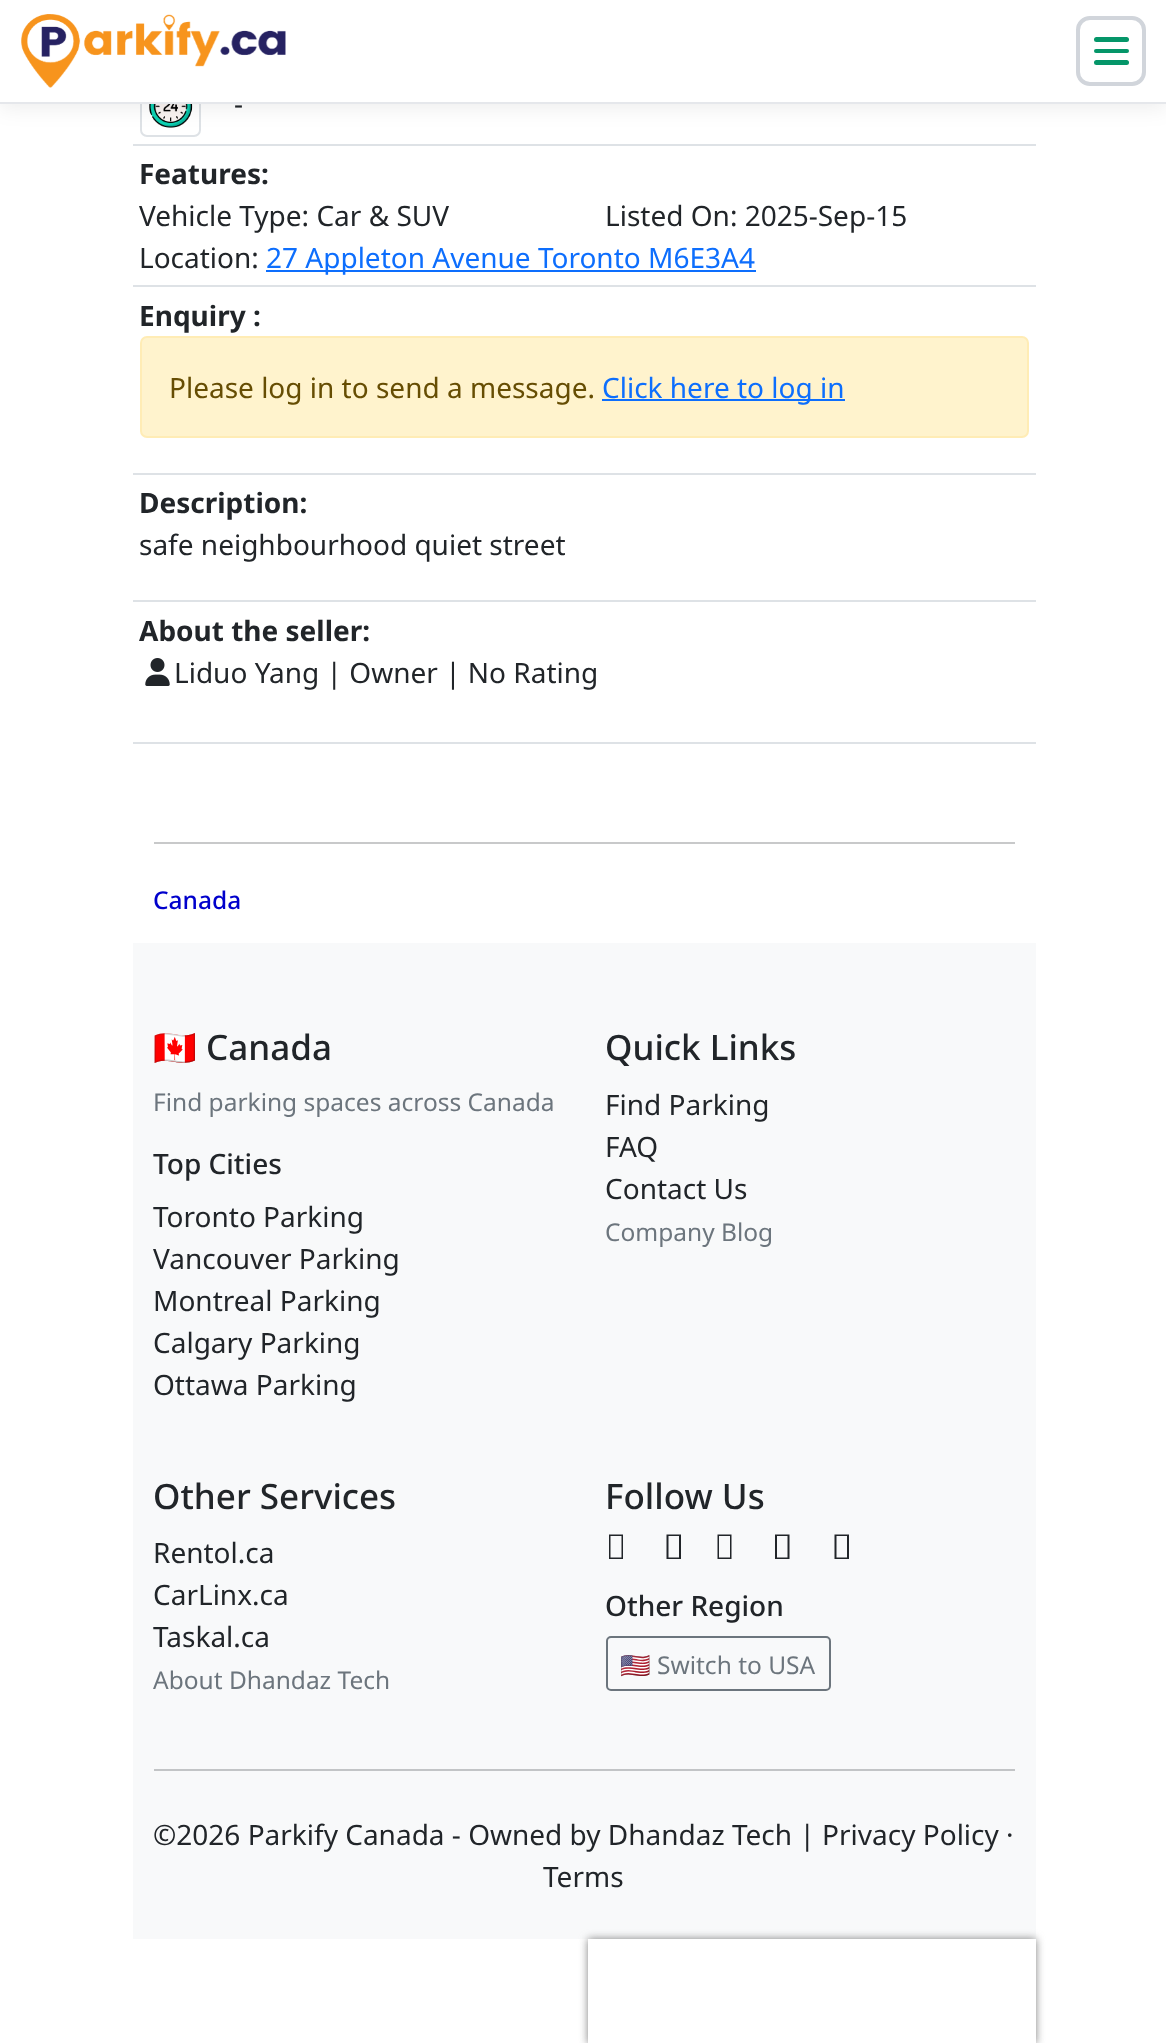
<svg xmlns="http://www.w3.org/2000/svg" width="1166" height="2043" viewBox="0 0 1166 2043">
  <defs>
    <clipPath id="clip1"><path d="M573 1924H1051V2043H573ZM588 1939H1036V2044H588Z" clip-rule="evenodd"/></clipPath>
  </defs>
  <rect width="100%" height="100%" fill="#fff"/>
  <rect x="141" y="76" width="59" height="60" rx="6" fill="none" stroke="#dee2e6" stroke-width="2"/>
  <image x="149" y="104" width="44" height="24" href="img/2.png"/>
  <path d="M0 4h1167v103H0z" fill="#00000014" filter="blur(10.5px)"/>
  <path d="M0 0h1166v102H0z" fill="#fff"/>
  <path d="M0 102h1166v2H0z" fill="#e5e7eb"/>
  <image x="21" y="14" width="265" height="74" href="img/1.png"/>
  <rect x="1078" y="18" width="66" height="66" rx="12" fill="none" stroke="#d1d5db" stroke-width="4"/>
  <rect x="1094" y="37" width="35" height="5" rx="2.5" fill="#059669"/>
  <rect x="1094" y="49" width="35" height="4" rx="2" fill="#059669"/>
  <rect x="1094" y="60" width="35" height="5" rx="2.5" fill="#059669"/>
  <path d="M133 144h903v2H133z" fill="#dee2e6"/>
  <path d="M266 270h490v2H266z" fill="#0d6efd"/>
  <path d="M133 285h903v2H133z" fill="#dee2e6"/>
  <rect x="141" y="337" width="887" height="100" rx="6" fill="#fff3cd" stroke="#ffecb5" stroke-width="2"/>
  <path d="M602 399h243v2H602z" fill="#0d6efd"/>
  <path d="M133 473h903v2H133z" fill="#dee2e6"/>
  <path d="M133 600h903v2H133z" fill="#dee2e6"/>
  <image x="145" y="658" width="25" height="28" href="img/3.png"/>
  <path d="M133 742h903v2H133z" fill="#dee2e6"/>
  <path d="M154 842h861v2H154z" fill="#c8c9ca"/>
  <path d="M133 943h903v996H133z" fill="#f8f9fa"/>
  <path d="M609 1559V1534.5H623V1559ZM610.5 1557.5H621.5V1536H610.5Z" fill="#212529"/>
  <path d="M666.5 1559V1534.5H681V1559ZM668.5 1557.5H679V1536H668.5Z" fill="#212529"/>
  <path d="M717.5 1559V1534.5H731.5V1559ZM719 1557.5H730V1536H719Z" fill="#212529"/>
  <path d="M775 1559V1534.5H789.5V1559ZM777 1557.5H787.5V1536H777Z" fill="#212529"/>
  <path d="M834.5 1559V1534.5H849V1559ZM836.5 1557.5H847V1536H836.5Z" fill="#212529"/>
  <rect x="607" y="1637" width="223" height="53" rx="4" fill="none" stroke="#6c757d" stroke-width="2"/>
  <path d="M154 1769h861v2H154z" fill="#c2c4c6"/>
  <g clip-path="url(#clip1)">
    <path d="M588 1939h448v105H588z" fill="#808080" filter="blur(4.5px)"/>
  </g>
  <text x="234" y="114" font-family="Noto Sans" font-size="28" fill="#212529">-</text>
  <text x="139" y="184" font-family="Noto Sans" font-size="28" font-weight="bold" fill="#212529">Features:</text>
  <g font-family="Noto Sans" font-size="28" fill="#212529">
    <text x="139" y="226">Vehicle Type: Car &amp; SUV</text>
    <text x="605" y="226">Listed On: 2025-Sep-15</text>
    <text x="139" y="268">Location:</text>
  </g>
  <text x="266" y="268" font-family="Noto Sans" font-size="28" fill="#0d6efd">27 Appleton Avenue Toronto M6E3A4</text>
  <text x="139" y="326" font-family="Noto Sans" font-size="28" font-weight="bold" fill="#212529">Enquiry :</text>
  <text x="169" y="398" font-family="Noto Sans" font-size="28" fill="#664d03">Please log in to send a message.</text>
  <text x="602" y="398" font-family="Noto Sans" font-size="28" fill="#0d6efd">Click here to log in</text>
  <text x="139" y="513" font-family="Noto Sans" font-size="28" font-weight="bold" fill="#212529">Description:</text>
  <text x="139" y="555" font-family="Noto Sans" font-size="28" fill="#212529">safe neighbourhood quiet street</text>
  <text x="139" y="641" font-family="Noto Sans" font-size="28" font-weight="bold" fill="#212529">About the seller:</text>
  <text x="174" y="683" font-family="Noto Sans" font-size="28" fill="#212529">Liduo Yang | Owner | No Rating</text>
  <text x="153" y="909" font-family="Noto Sans" font-size="24.5" font-weight="500" fill="#00c">Canada</text>
  <text x="153" y="1060" font-family="Noto Color Emoji" font-size="35" fill="#212529">🇨🇦</text>
  <text x="206" y="1060" font-family="Noto Sans" font-size="35" font-weight="500" fill="#212529">Canada</text>
  <text x="153" y="1111" font-family="Noto Sans" font-size="24.5" fill="#6c757d">Find parking spaces across Canada</text>
  <text x="153" y="1174" font-family="Noto Sans" font-size="28" font-weight="500" fill="#212529">Top Cities</text>
  <g font-family="Noto Sans" font-size="28" fill="#212529">
    <text x="153" y="1227">Toronto Parking</text>
    <text x="153" y="1269">Vancouver Parking</text>
    <text x="153" y="1311">Montreal Parking</text>
    <text x="153" y="1353">Calgary Parking</text>
    <text x="153" y="1395">Ottawa Parking</text>
  </g>
  <text x="605" y="1060" font-family="Noto Sans" font-size="35" font-weight="500" fill="#212529">Quick Links</text>
  <g font-family="Noto Sans" font-size="28" fill="#212529">
    <text x="605" y="1115">Find Parking</text>
    <text x="605" y="1157">FAQ</text>
    <text x="605" y="1199">Contact Us</text>
  </g>
  <text x="605" y="1241" font-family="Noto Sans" font-size="24.5" fill="#6c757d">Company Blog</text>
  <text x="153" y="1509" font-family="Noto Sans" font-size="35" font-weight="500" fill="#212529">Other Services</text>
  <g font-family="Noto Sans" font-size="28" fill="#212529">
    <text x="153" y="1563">Rentol.ca</text>
    <text x="153" y="1605">CarLinx.ca</text>
    <text x="153" y="1647">Taskal.ca</text>
  </g>
  <text x="153" y="1689" font-family="Noto Sans" font-size="24.5" fill="#6c757d">About Dhandaz Tech</text>
  <text x="605" y="1509" font-family="Noto Sans" font-size="35" font-weight="500" fill="#212529">Follow Us</text>
  <text x="605" y="1616" font-family="Noto Sans" font-size="28" font-weight="500" fill="#212529">Other Region</text>
  <text x="620" y="1674" font-family="Noto Color Emoji" font-size="24.5" fill="#6c757d">🇺🇸</text>
  <text x="657" y="1674" font-family="Noto Sans" font-size="24.5" fill="#6c757d">Switch to USA</text>
  <g font-family="Noto Sans" font-size="28" fill="#212529">
    <text x="153" y="1845">©2026 Parkify Canada - Owned by Dhandaz Tech | Privacy Policy ·</text>
    <text x="543" y="1887">Terms</text>
  </g>
</svg>
